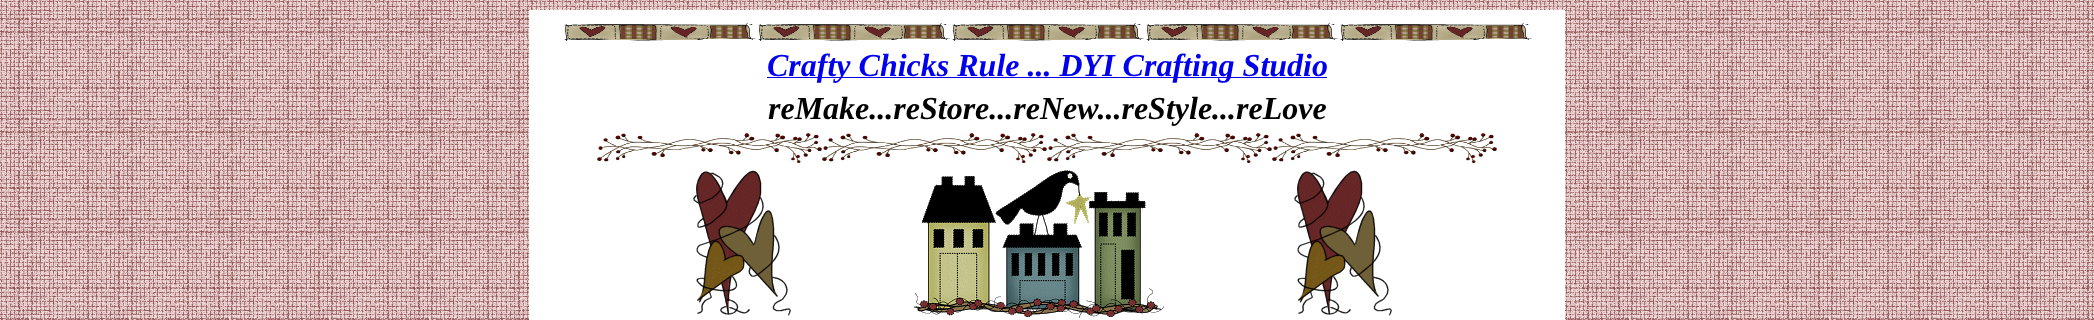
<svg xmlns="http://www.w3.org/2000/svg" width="2094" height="320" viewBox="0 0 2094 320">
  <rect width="100%" height="100%" fill="#fff"/>
  <image x="0" y="0" width="2094" height="320" href="img/1.png"/>
  <path d="M529 10h1036v310H529z" fill="#fff"/>
  <image x="564" y="23" width="192" height="18" href="img/2.png"/>
  <image x="758" y="23" width="192" height="18" href="img/2.png"/>
  <image x="952" y="23" width="192" height="18" href="img/3.png"/>
  <image x="1146" y="23" width="192" height="18" href="img/4.png"/>
  <image x="1340" y="23" width="192" height="18" href="img/4.png"/>
  <path d="M767 77h560v1H767z" fill="#00e"/>
  <image x="597" y="133" width="225" height="30" href="img/5.png"/>
  <image x="822" y="133" width="225" height="30" href="img/5.png"/>
  <image x="1047" y="133" width="225" height="30" href="img/5.png"/>
  <image x="1272" y="133" width="225" height="30" href="img/5.png"/>
  <image x="693" y="170" width="98" height="146" href="img/6.png"/>
  <image x="914" y="170" width="250" height="148" href="img/7.png"/>
  <image x="1294" y="170" width="98" height="146" href="img/6.png"/>
  <text x="767" y="76" font-family="Liberation Serif" font-size="32" font-weight="bold" font-style="italic" fill="#00e">Crafty Chicks Rule ... DYI Crafting Studio</text>
  <text x="768" y="119" font-family="Liberation Serif" font-size="32" font-weight="bold" font-style="italic" fill="#000">reMake...reStore...reNew...reStyle...reLove</text>
</svg>
